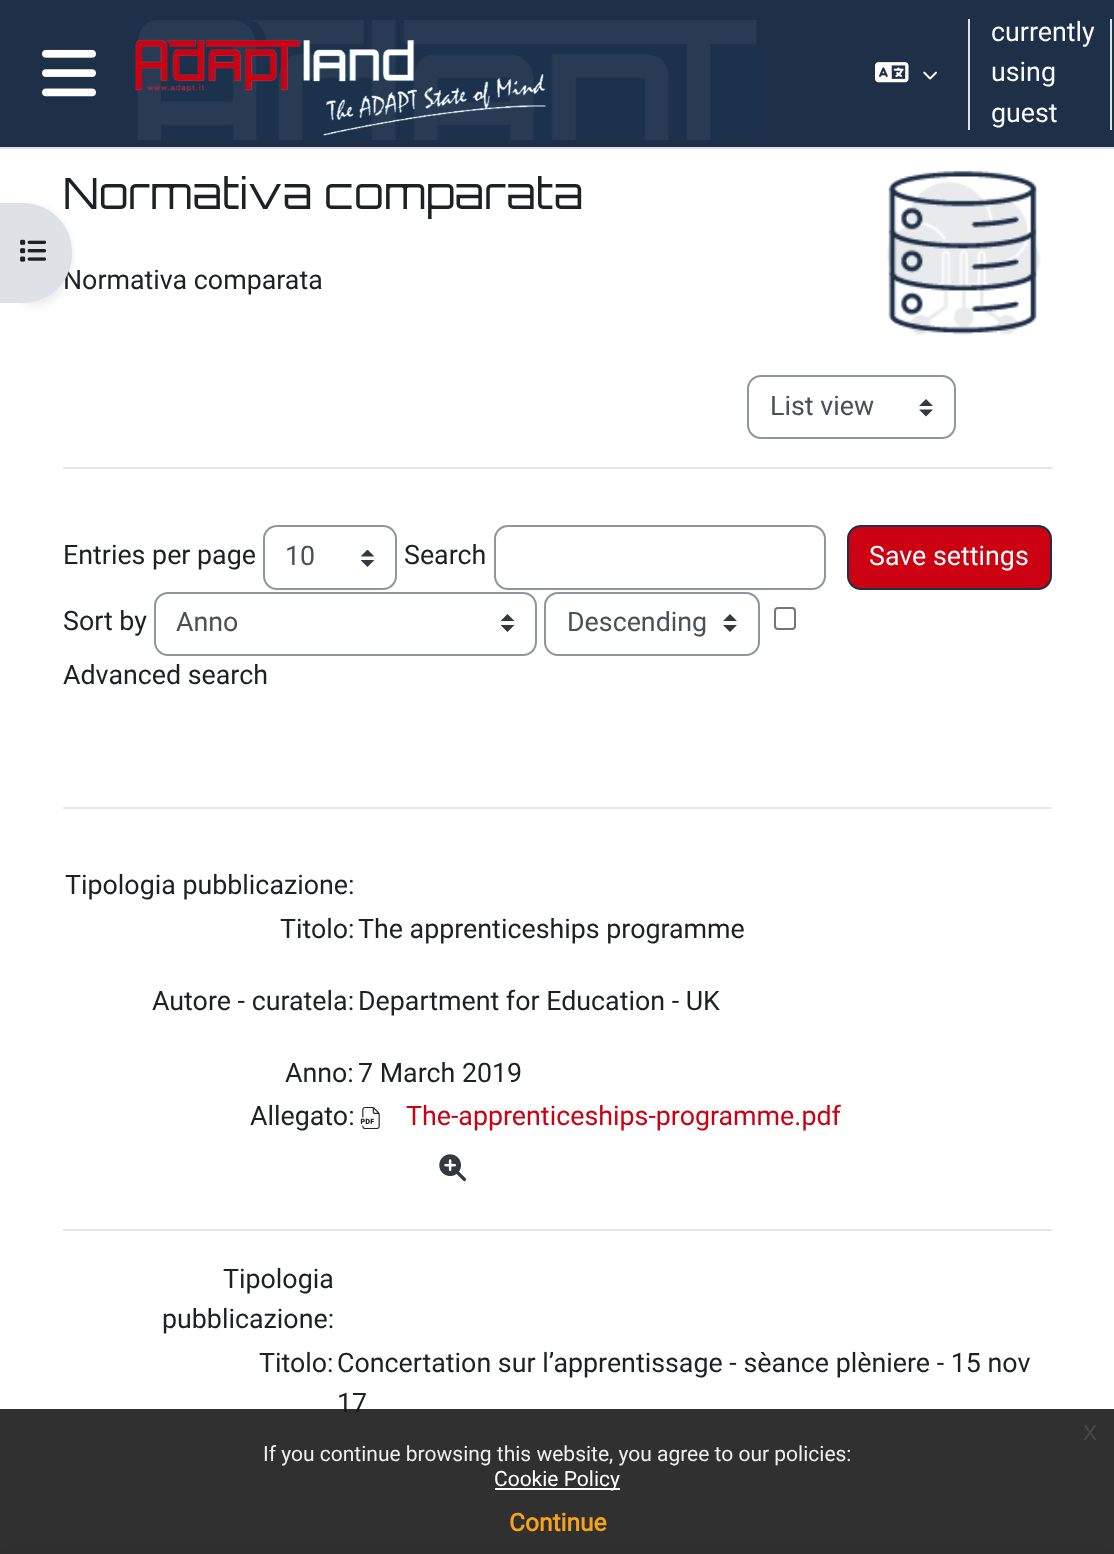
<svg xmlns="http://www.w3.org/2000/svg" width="1114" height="1554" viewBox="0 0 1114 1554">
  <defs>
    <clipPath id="clip1"><path d="M361 550h14v17H361z"/></clipPath>
  </defs>
  <rect width="100%" height="100%" fill="#fff"/>
  <path d="M0 0h1114v147H0z" fill="#1e2f48"/>
  <path d="M0 147h1114v2H0z" fill="#dee2e6"/>
  <image x="42" y="49" width="54" height="48" href="img/1.png"/>
  <image x="135" y="20" width="622" height="120" href="img/2.png"/>
  <image x="875" y="62" width="34" height="21" href="img/3.png"/>
  <image x="923" y="71" width="14" height="9" href="img/4.png"/>
  <path d="M968 19h2v111H968z" fill="#dee2e6"/>
  <path d="M1110 19h2v111H1110z" fill="#dee2e6"/>
  <rect y="207" width="72" height="99" rx="49" fill="#00000012" filter="blur(3.5px)"/>
  <image x="887" y="170" width="154" height="165" href="img/6.png"/>
  <path d="M926 399L919 406H933ZM926 416.5L919 409.5H933Z" fill="#343a40"/>
  <rect x="748" y="376" width="207" height="62" rx="13" fill="none" stroke="#8f959e" stroke-width="2"/>
  <path d="M63 467h989v2H63z" fill="#e6e6e6"/>
  <g clip-path="url(#clip1)">
    <path d="M367.5 549.5L360.5 556.5H374.5ZM367.5 567L360.5 560H374.5Z" fill="#343a40"/>
  </g>
  <rect x="264" y="526" width="132" height="63" rx="13" fill="none" stroke="#8f959e" stroke-width="2"/>
  <rect x="495" y="526" width="330" height="63" rx="13" fill="none" stroke="#8f959e" stroke-width="2"/>
  <path d="M507.5 614L500.5 621H514.5ZM507.5 632L500.5 625H514.5Z" fill="#343a40"/>
  <rect x="155" y="593" width="381" height="62" rx="13" fill="none" stroke="#8f959e" stroke-width="2"/>
  <path d="M730 614L723 621H737ZM730 632L723 625H737Z" fill="#343a40"/>
  <rect x="545" y="593" width="214" height="62" rx="13" fill="none" stroke="#8f959e" stroke-width="2"/>
  <rect x="775" y="608" width="20" height="21" rx="3" fill="none" stroke="#767676" stroke-width="2"/>
  <rect x="848" y="526" width="203" height="63" rx="13" fill="#cc0212" stroke="#1e2f48" stroke-width="2"/>
  <path d="M63 807h989v2H63z" fill="#e6e6e6"/>
  <image x="360" y="1107" width="20" height="22" href="img/7.png"/>
  <image x="439" y="1154" width="28" height="28" href="img/8.png"/>
  <path d="M63 1229h989v2H63z" fill="#e6e6e6"/>
  <path d="M0 1554h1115v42H0z" fill="#00000026" filter="blur(14px)"/>
  <g font-family="Roboto" font-size="26.8" fill="#f8f9fa">
    <text x="991" y="41">currently</text>
    <text x="991" y="81">using</text>
    <text x="991" y="122">guest</text>
  </g>
  <text x="63" y="209" font-family="Orbitron" font-size="43" fill="#1d2125">Normativa comparata</text>
  <text x="63" y="289" font-family="Roboto" font-size="26.8" fill="#1d2125">Normativa comparata</text>
  <path d="M0 203H23C50 203 72 225 72 252V254C72 281 50 303 23 303H0Z" fill="#dee2e6"/>
  <image x="20" y="239" width="27" height="23" href="img/5.png"/>
  <text x="770" y="415" font-family="Roboto" font-size="26.8" fill="#495057">List view</text>
  <text x="63" y="564" font-family="Roboto" font-size="26.8" fill="#1d2125">Entries per page</text>
  <text x="285" y="565" font-family="Roboto" font-size="26.8" fill="#495057">10</text>
  <g font-family="Roboto" font-size="26.8" fill="#1d2125">
    <text x="404" y="564">Search</text>
    <text x="63" y="630">Sort by</text>
  </g>
  <g font-family="Roboto" font-size="26.8" fill="#495057">
    <text x="176" y="631">Anno</text>
    <text x="567" y="631">Descending</text>
  </g>
  <text x="63" y="684" font-family="Roboto" font-size="26.8" fill="#1d2125">Advanced search</text>
  <text x="869" y="565" font-family="Roboto" font-size="26.8" fill="#fff">Save settings</text>
  <g font-family="Roboto" font-size="26.8" fill="#1d2125">
    <text x="65" y="894">Tipologia pubblicazione:</text>
    <text x="280" y="938">Titolo:</text>
    <text x="358" y="938">The apprenticeships programme</text>
    <text x="152" y="1010">Autore - curatela:</text>
    <text x="358" y="1010">Department for Education - UK</text>
    <text x="285" y="1082">Anno:</text>
    <text x="358" y="1082">7 March 2019</text>
    <text x="250" y="1125">Allegato:</text>
  </g>
  <text x="406" y="1125" font-family="Roboto" font-size="26.8" fill="#c90112">The-apprenticeships-programme.pdf</text>
  <g font-family="Roboto" font-size="26.8" fill="#1d2125">
    <text x="223" y="1288">Tipologia</text>
    <text x="162" y="1328">pubblicazione:</text>
    <text x="259" y="1372">Titolo:</text>
    <text x="337" y="1372">Concertation sur l’apprentissage - sèance plèniere - 15 nov</text>
    <text x="337" y="1412">17</text>
  </g>
  <path d="M0 1409h1114v145H0z" fill="#191919e6"/>
  <text x="1083" y="1440" font-family="Liberation Sans" font-size="28" fill="#474747">x</text>
  <text x="263" y="1461" font-family="Roboto" font-size="21" fill="#efefef">If you continue browsing this website, you agree to our policies:</text>
  <path d="M495 1488h125v2H495z" fill="#fff"/>
  <text x="494" y="1486" font-family="Roboto" font-size="21" fill="#fff">Cookie Policy</text>
  <text x="509" y="1531" font-family="Roboto" font-size="24.5" font-weight="bold" fill="#f6a21d">Continue</text>
</svg>
